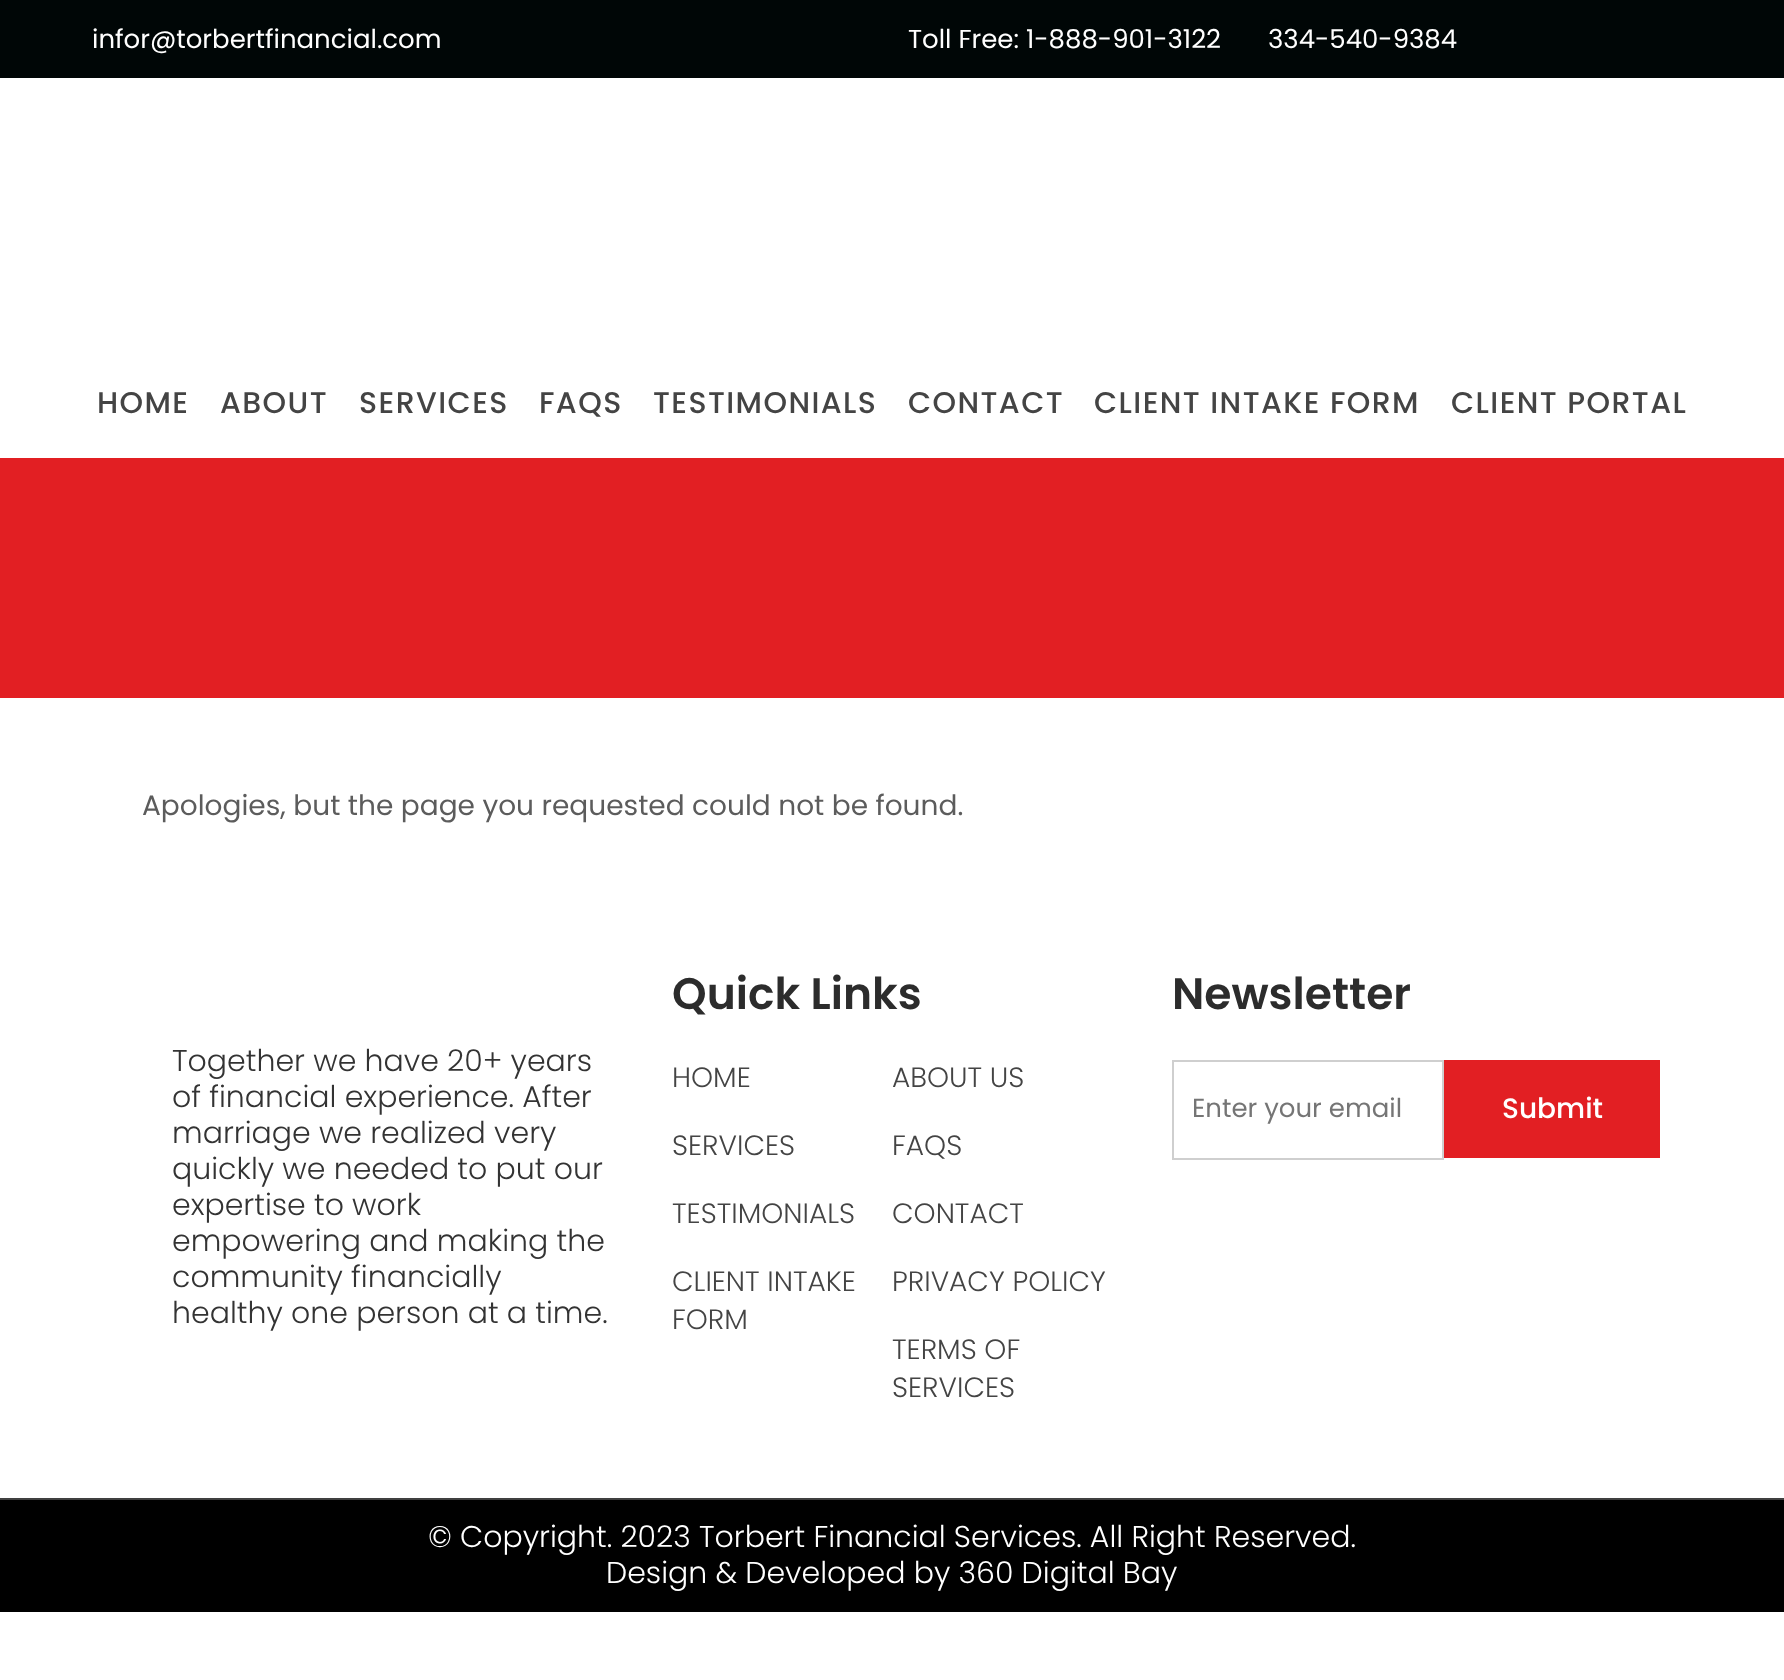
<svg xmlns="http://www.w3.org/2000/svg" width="1784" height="1680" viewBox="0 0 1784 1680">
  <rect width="100%" height="100%" fill="#fff"/>
  <path d="M0 0h1784v78H0z" fill="#000606"/>
  <path d="M0 458h1784v240H0z" fill="#e21f23"/>
  <path d="M1173 1061h270v98H1173z" fill="none" stroke="#cfcfcf" stroke-width="2"/>
  <path d="M1444 1060h216v98H1444z" fill="#e21f23"/>
  <path d="M0 1500h1784v112H0z" fill="#000"/>
  <path d="M0 1498h1784v2H0z" fill="#404040"/>
  <g font-family="Poppins" font-size="26" fill="#fff">
    <text x="92" y="48">infor@torbertfinancial.com</text>
    <text x="908" y="48">Toll Free: 1-888-901-3122</text>
    <text x="1268" y="48">334-540-9384</text>
  </g>
  <g font-family="Poppins" font-size="30" font-weight="500" letter-spacing="1.4" fill="#444">
    <text x="97" y="413">HOME</text>
    <text x="220" y="413">ABOUT</text>
    <text x="359" y="413">SERVICES</text>
    <text x="539" y="413">FAQS</text>
    <text x="653" y="413">TESTIMONIALS</text>
    <text x="908" y="413">CONTACT</text>
    <text x="1094" y="413">CLIENT INTAKE FORM</text>
    <text x="1451" y="413">CLIENT PORTAL</text>
  </g>
  <text x="142" y="815" font-family="Poppins" font-size="28" fill="#5c5c5c">Apologies, but the page you requested could not be found.</text>
  <g font-family="Poppins" font-size="30" font-weight="300" fill="#333">
    <text x="172" y="1071">Together we have 20+ years</text>
    <text x="172" y="1107">of financial experience. After</text>
    <text x="172" y="1143">marriage we realized very</text>
    <text x="172" y="1179">quickly we needed to put our</text>
    <text x="172" y="1215">expertise to work</text>
    <text x="172" y="1251">empowering and making the</text>
    <text x="172" y="1287">community financially</text>
    <text x="172" y="1323">healthy one person at a time.</text>
  </g>
  <text x="672" y="1009" font-family="Poppins" font-size="44" font-weight="600" fill="#2c2c2c">Quick Links</text>
  <g font-family="Poppins" font-size="28" font-weight="300" fill="#444">
    <text x="672" y="1087">HOME</text>
    <text x="892" y="1087">ABOUT US</text>
    <text x="672" y="1155">SERVICES</text>
    <text x="892" y="1155">FAQS</text>
    <text x="672" y="1223">TESTIMONIALS</text>
    <text x="892" y="1223">CONTACT</text>
    <text x="672" y="1291">CLIENT INTAKE</text>
    <text x="672" y="1329">FORM</text>
    <text x="892" y="1291">PRIVACY POLICY</text>
    <text x="892" y="1359">TERMS OF</text>
    <text x="892" y="1397">SERVICES</text>
  </g>
  <text x="1172" y="1009" font-family="Poppins" font-size="44" font-weight="600" fill="#2c2c2c">Newsletter</text>
  <text x="1192" y="1117" font-family="Poppins" font-size="26" fill="#757575">Enter your email</text>
  <text x="1502" y="1118" font-family="Poppins" font-size="28" font-weight="500" fill="#fff">Submit</text>
  <g font-family="Poppins" font-size="30" font-weight="300" fill="#fff">
    <text x="428" y="1547">© Copyright. 2023 Torbert Financial Services. All Right Reserved.</text>
    <text x="606" y="1583">Design &amp; Developed by 360 Digital Bay</text>
  </g>
</svg>
